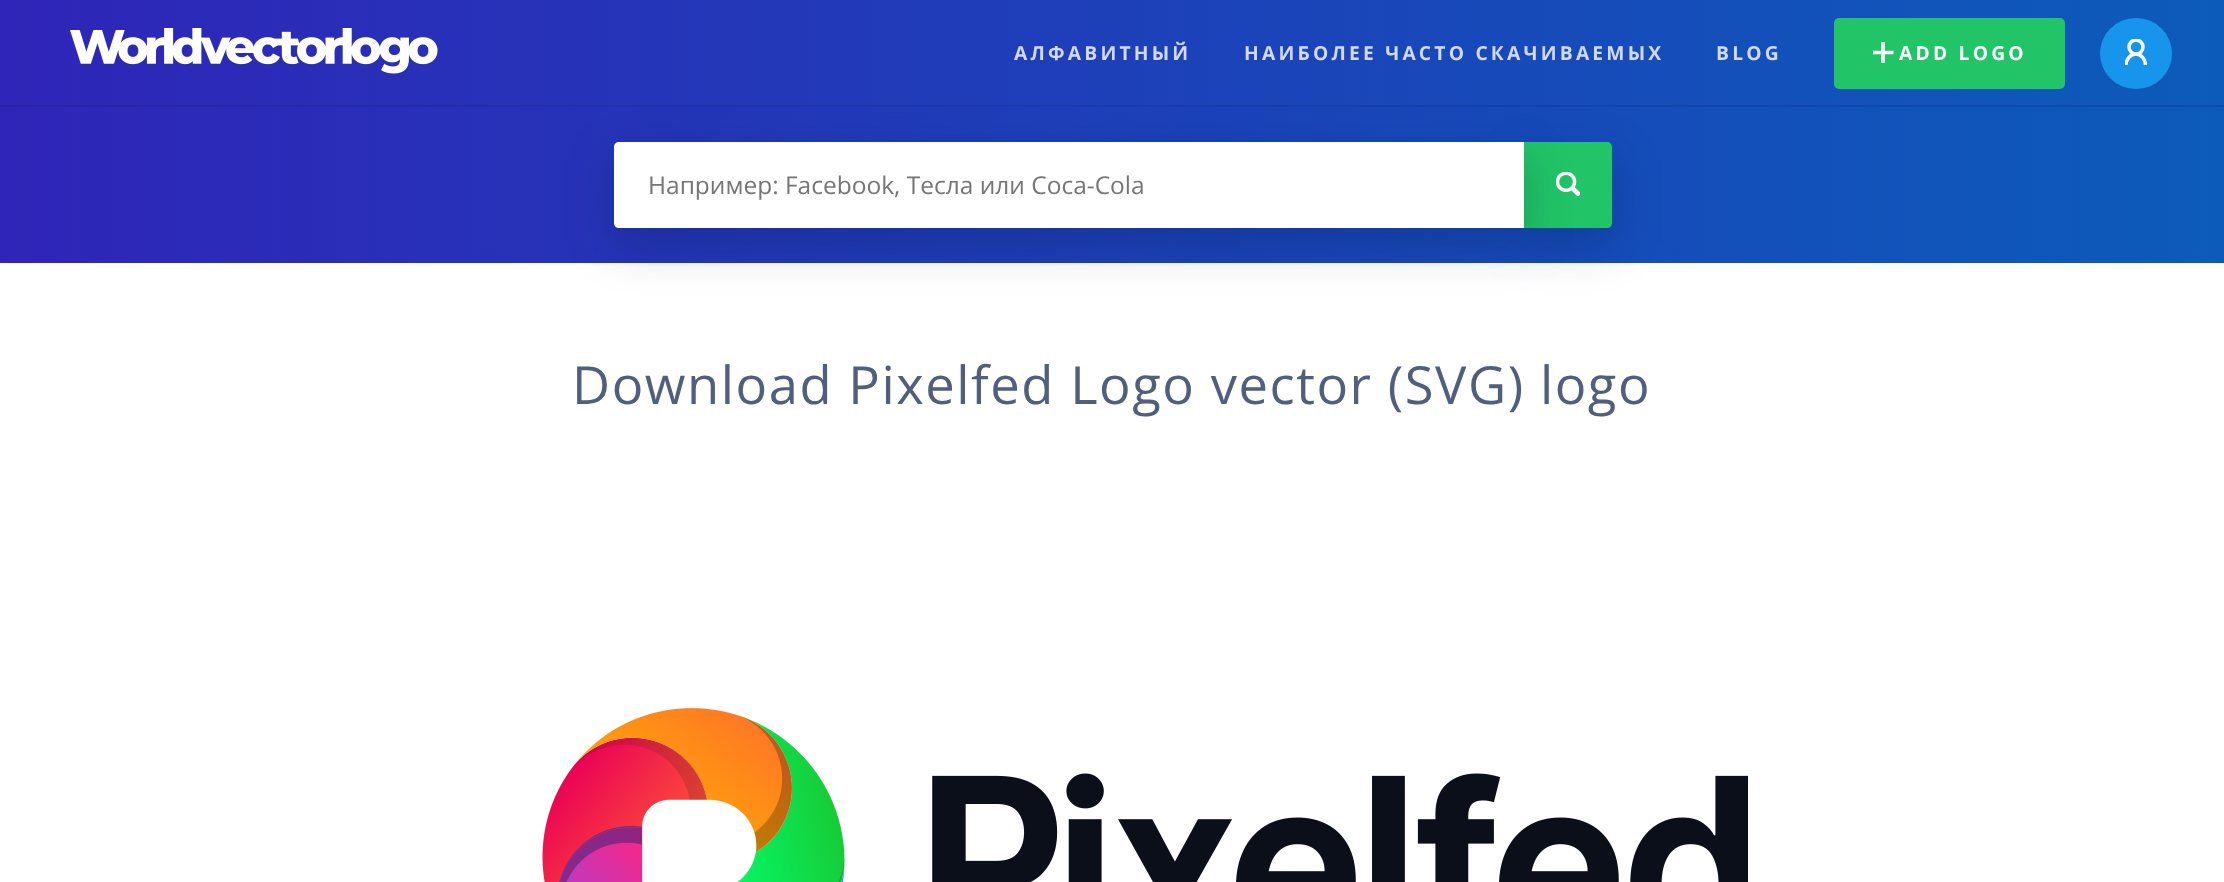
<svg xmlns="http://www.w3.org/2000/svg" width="2224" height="882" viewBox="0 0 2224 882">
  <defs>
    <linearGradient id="g1" gradientUnits="userSpaceOnUse" x1="0" y1="53" x2="2224" y2="52"><stop offset="0" stop-color="#2f25b8"/><stop offset="1" stop-color="#0c5bba"/></linearGradient>
    <linearGradient id="g2" gradientUnits="userSpaceOnUse" x1="0" y1="53" x2="2224" y2="52"><stop offset="0" stop-color="#2824aa"/><stop offset="1" stop-color="#0c4fab"/></linearGradient>
    <clipPath id="clip1"><path d="M1873 42h21v21H1873z"/></clipPath>
    <clipPath id="clip2"><path d="M2125 39h22v26H2125z"/></clipPath>
    <linearGradient id="g3" gradientUnits="userSpaceOnUse" x1="0" y1="185" x2="2224" y2="185"><stop offset="0" stop-color="#2f25b8"/><stop offset="1" stop-color="#0c5bba"/></linearGradient>
  </defs>
  <rect width="100%" height="100%" fill="#fff"/>
  <path d="M0 0h2224v105H0z" fill="url(#g1)"/>
  <path d="M0 105h2224v2H0z" fill="url(#g2)"/>
  <image x="70" y="28" width="368" height="46" href="img/1.png"/>
  <rect x="1834" y="18" width="231" height="71" rx="5" fill="#21c466"/>
  <path d="M1881 42h4v21H1881z" fill="#e3f8ec"/>
  <g clip-path="url(#clip1)">
    <path d="M1872.5 52.5H1893.5" fill="none" stroke="#fff" stroke-width="3.5"/>
  </g>
  <rect x="2100" y="18" width="72" height="71" rx="35.5" fill="#1795ec"/>
  <g clip-path="url(#clip2)">
    <circle cx="2136" cy="47" r="7" fill="none" stroke="#fff" stroke-width="3.5"/>
    <path d="M2126 65C2126 59.5 2130.5 54 2136 54C2141 54 2145.5 59.5 2145.5 65" fill="none" stroke="#fff" stroke-width="3.5"/>
  </g>
  <path d="M0 107h2224v156H0z" fill="url(#g3)"/>
  <rect x="1524" y="159" width="88" height="86" rx="5" fill="#00174140" filter="blur(23.5px)"/>
  <path d="M1524 142H1607C1610 142 1612 144 1612 147V223C1612 226 1610 228 1607 228H1524Z" fill="#21c466"/>
  <image x="1556" y="172" width="24" height="24" href="img/2.png"/>
  <rect x="614" y="159" width="910" height="86" rx="5" fill="#00174140" filter="blur(23.5px)"/>
  <path d="M619 142H1524V228H619C616 228 614 226 614 223V147C614 144 616 142 619 142Z" fill="#fff"/>
  <image x="542" y="708" width="1206" height="174" href="img/3.png"/>
  <g font-family="Open Sans" font-size="19.25" font-weight="bold" letter-spacing="3.2" fill="#d2d9f1">
    <text x="1014" y="60">АЛФАВИТНЫЙ</text>
    <text x="1244" y="60">НАИБОЛЕЕ ЧАСТО СКАЧИВАЕМЫХ</text>
    <text x="1716" y="60">BLOG</text>
  </g>
  <text x="1899" y="60" font-family="Open Sans" font-size="19.25" font-weight="bold" letter-spacing="3.2" fill="#fff">ADD LOGO</text>
  <text x="648" y="194" font-family="Open Sans" font-size="24.5" fill="#757575">Например: Facebook, Тесла или Coca-Cola</text>
  <text x="572" y="404" font-family="Open Sans" font-size="52.5" letter-spacing="1.55" fill="#505f7d">Download Pixelfed Logo vector (SVG) logo</text>
</svg>
